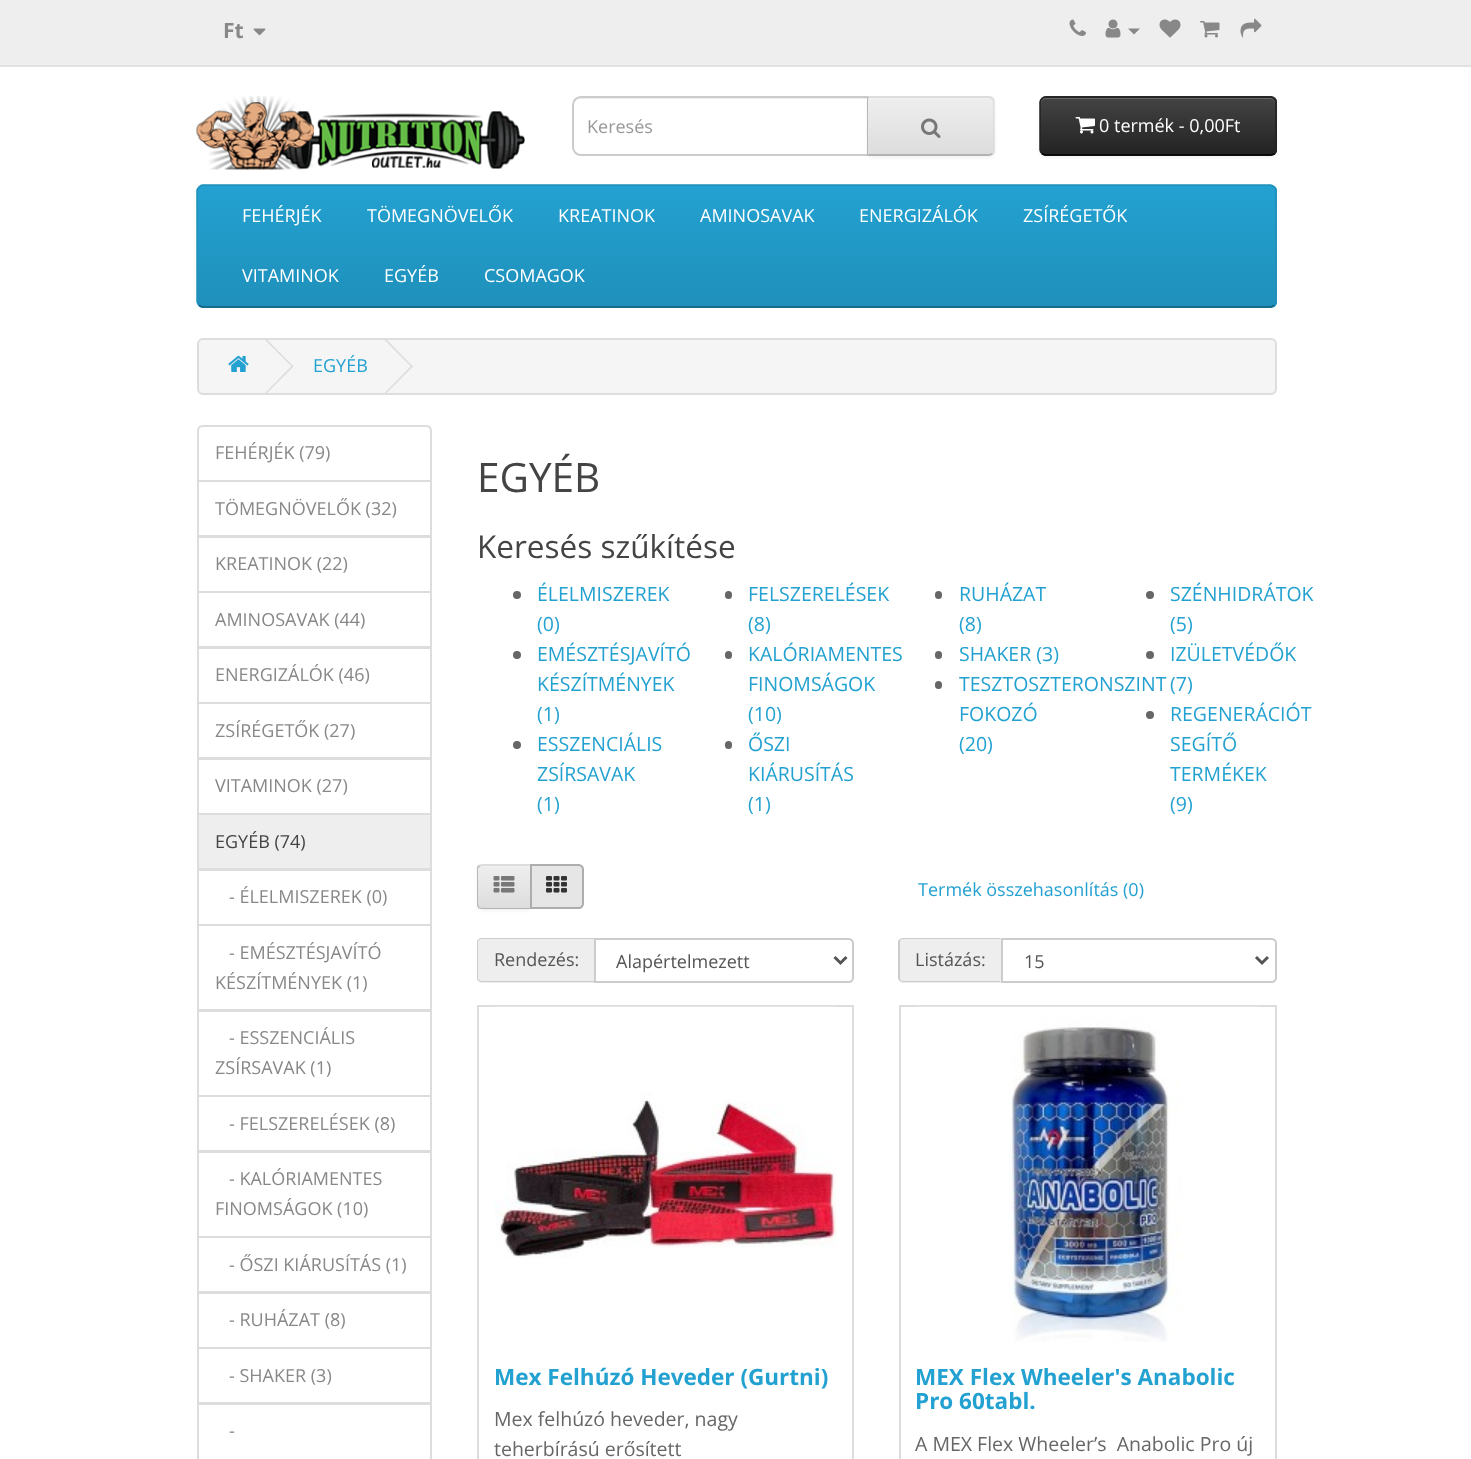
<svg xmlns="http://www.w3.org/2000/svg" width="1471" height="1459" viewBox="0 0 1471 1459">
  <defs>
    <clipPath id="clip1"><path d="M867 96H989C992.5 96 995 98.5 995 102V150C995 153.5 992.5 156 989 156H867Z"/></clipPath>
    <linearGradient id="g1" gradientUnits="userSpaceOnUse" x1="931" y1="98" x2="931" y2="155"><stop offset="0" stop-color="#eee"/><stop offset="1" stop-color="#ddd"/></linearGradient>
    <clipPath id="clip2"><rect x="1040" y="96" width="237" height="60" rx="6"/></clipPath>
    <linearGradient id="g2" gradientUnits="userSpaceOnUse" x1="1158" y1="97" x2="1158" y2="155"><stop offset="0" stop-color="#444"/><stop offset="1" stop-color="#222"/></linearGradient>
    <clipPath id="clip3"><rect x="197" y="185" width="1080" height="123" rx="6"/></clipPath>
    <linearGradient id="g3" gradientUnits="userSpaceOnUse" x1="737" y1="186" x2="737" y2="306"><stop offset="0" stop-color="#23a1d1"/><stop offset="1" stop-color="#1f90bb"/></linearGradient>
    <clipPath id="clip4"><path d="M482 864H531V909H482C479 909 477 907 477 904V869C477 866 479 864 482 864Z"/></clipPath>
    <linearGradient id="g4" gradientUnits="userSpaceOnUse" x1="504" y1="866" x2="504" y2="908"><stop offset="0" stop-color="#eee"/><stop offset="1" stop-color="#ddd"/></linearGradient>
  </defs>
  <rect width="100%" height="100%" fill="#fff"/>
  <path d="M0 0h1471v65H0z" fill="#eee"/>
  <path d="M0 65h1471v2H0z" fill="#e2e2e2"/>
  <image x="253" y="28" width="13" height="8" href="img/1.png"/>
  <image x="1069" y="19" width="17" height="17" href="img/2.png"/>
  <image x="1105" y="19" width="16" height="19" href="img/3.png"/>
  <path d="M1128 28.5H1140L1134 34.5Z" fill="#888"/>
  <image x="1159" y="19" width="22" height="19" href="img/4.png"/>
  <image x="1200" y="21" width="20" height="17" href="img/5.png"/>
  <image x="1240" y="18" width="22" height="20" href="img/6.png"/>
  <image x="196" y="96" width="329" height="74" href="img/7.png"/>
  <path d="M580 99H867V98H581C577 98 573 102 573 106C573 102 576 99 580 99Z" fill="#ececec"/>
  <path d="M581 97H868V155H581C576.5 155 573 151.5 573 147V105C573 100.5 576.5 97 581 97Z" fill="none" stroke="#ccc" stroke-width="2"/>
  <rect x="867" y="98" width="128" height="60" rx="6" fill="#0000000d" filter="blur(1.5px)"/>
  <path d="M867 96H989C992.5 96 995 98.5 995 102V150C995 153.5 992.5 156 989 156H867Z" fill="#e7e7e7"/>
  <g clip-path="url(#clip1)">
    <path d="M868 98h127v57H868z" fill="url(#g1)"/>
  </g>
  <path d="M869 98V99H988C991 99 993 101 993 104C993 101 991 98 988 98Z" fill="#f1f1f1"/>
  <path d="M867 96L869 98H988C989 98 991 98 991 99L993 98C992 97 990 96 988 96Z" fill="#ddd"/>
  <path d="M993 98C994 99 994 101 994 102V150C994 151 994 153 993 154L991 153C992 152 993 151 993 150V102C993 101 992 100 991 99Z" fill="#ddd"/>
  <path d="M988 156C990 156 992 155 993 154L991 153C991 154 989 154 988 154H869L867 156Z" fill="#b3b3b3"/>
  <path d="M867 96V156L869 154H868V98H869Z" fill="#b7b7b7"/>
  <image x="921" y="118" width="20" height="20" href="img/8.png"/>
  <rect x="1040" y="98" width="237" height="60" rx="6" fill="#0000000d" filter="blur(1.5px)"/>
  <rect x="1040" y="96" width="237" height="60" rx="6" fill="#363636"/>
  <g clip-path="url(#clip2)">
    <path d="M1040 98h237v57H1040z" fill="url(#g2)"/>
  </g>
  <path d="M1046 99H1270C1273 99 1275 101 1275 104V103C1275 100 1273 98 1270 98H1046C1043 98 1041 100 1041 103V104C1041 101 1043 99 1046 99Z" fill="#696969"/>
  <path d="M1274 153.5C1273 154.5 1272 155 1270.5 155H1045.5C1044 155 1043 154.5 1042 153.5" fill="none" stroke="#000" stroke-width="1.5"/>
  <path d="M1042 153.5C1041 152.5 1040 151.5 1040 150V102C1040 100.5 1041 99.5 1042 98.5C1043 97.5 1044 97 1045.5 97H1270.5C1272 97 1273 97.5 1274 98.5C1275 99.5 1276 100.5 1276 102V150C1276 151.5 1275 152.5 1274 153.5" fill="none" stroke="#222" stroke-width="1.5"/>
  <image x="1075" y="117" width="20" height="17" href="img/9.png"/>
  <rect x="197" y="185" width="1080" height="123" rx="6" fill="#229ac8"/>
  <g clip-path="url(#clip3)">
    <path d="M197 186h1080v120H197z" fill="url(#g3)"/>
  </g>
  <path d="M1274 305C1273 306 1272 307 1270.5 307H202.5C201 307 200 306 199 305" fill="none" stroke="#145e7a" stroke-width="1.5"/>
  <path d="M199 305C198 304 197 303 197 301.5V190.5C197 189 198 188 199 187C200 186 201 185 202.5 185H1270.5C1272 185 1273 186 1274 187C1275 188 1276 189 1276 190.5V301.5C1276 303 1275 304 1274 305" fill="none" stroke="#1f90bb" stroke-width="1.5"/>
  <rect x="198" y="339" width="1078" height="55" rx="5" fill="#f5f5f5" stroke="#ddd" stroke-width="2"/>
  <image x="228" y="355" width="21" height="17" href="img/10.png"/>
  <path d="M265 340L266 338.5L293.5 366.5L292.5 367.5Z" fill="#ddd"/>
  <path d="M265 393L292.5 365L293.5 366.5L266 394Z" fill="#ddd"/>
  <path d="M384.5 340L385.5 338.5L413 366.5L412 367.5Z" fill="#ddd"/>
  <path d="M384.5 393L412 365L413 366.5L385.5 394Z" fill="#ddd"/>
  <path d="M203 426H426C429 426 431 428 431 431V481H198V431C198 428 200 426 203 426Z" fill="none" stroke="#ddd" stroke-width="2"/>
  <path d="M198 481h233v55H198z" fill="none" stroke="#ddd" stroke-width="2"/>
  <path d="M198 537h233v55H198z" fill="none" stroke="#ddd" stroke-width="2"/>
  <path d="M198 592h233v55H198z" fill="none" stroke="#ddd" stroke-width="2"/>
  <path d="M198 648h233v55H198z" fill="none" stroke="#ddd" stroke-width="2"/>
  <path d="M198 703h233v55H198z" fill="none" stroke="#ddd" stroke-width="2"/>
  <path d="M198 759h233v55H198z" fill="none" stroke="#ddd" stroke-width="2"/>
  <path d="M198 870h233v55H198z" fill="none" stroke="#ddd" stroke-width="2"/>
  <path d="M198 814h233v55H198z" fill="#eee" stroke="#ddd" stroke-width="2"/>
  <path d="M198 925h233v85H198z" fill="none" stroke="#ddd" stroke-width="2"/>
  <path d="M198 1011h233v85H198z" fill="none" stroke="#ddd" stroke-width="2"/>
  <path d="M198 1096h233v55H198z" fill="none" stroke="#ddd" stroke-width="2"/>
  <path d="M198 1152h233v85H198z" fill="none" stroke="#ddd" stroke-width="2"/>
  <path d="M198 1237h233v55H198z" fill="none" stroke="#ddd" stroke-width="2"/>
  <path d="M198 1293h233v55H198z" fill="none" stroke="#ddd" stroke-width="2"/>
  <path d="M198 1348h233v55H198z" fill="none" stroke="#ddd" stroke-width="2"/>
  <path d="M198 1404h233v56H198z" fill="none" stroke="#ddd" stroke-width="2"/>
  <circle cx="517" cy="595" r="4" fill="#666"/>
  <circle cx="517" cy="655" r="4" fill="#666"/>
  <circle cx="517" cy="745" r="4" fill="#666"/>
  <rect x="725" y="591" width="7" height="8" rx="3.5" fill="#666"/>
  <rect x="725" y="651" width="7" height="8" rx="3.5" fill="#666"/>
  <rect x="725" y="741" width="7" height="8" rx="3.5" fill="#666"/>
  <rect x="935" y="591" width="7" height="8" rx="3.5" fill="#666"/>
  <rect x="935" y="651" width="7" height="8" rx="3.5" fill="#666"/>
  <rect x="935" y="681" width="7" height="8" rx="3.5" fill="#666"/>
  <circle cx="1150" cy="595" r="4" fill="#666"/>
  <circle cx="1150" cy="655" r="4" fill="#666"/>
  <circle cx="1150" cy="715" r="4" fill="#666"/>
  <rect x="477" y="866" width="54" height="45" rx="5" fill="#0000000d" filter="blur(1.5px)"/>
  <g clip-path="url(#clip4)">
    <path d="M477 866h53v42H477z" fill="url(#g4)"/>
  </g>
  <path d="M482 867H530V866H481L479 868Z" fill="#f1f1f1"/>
  <path d="M482 864C480 864 479 865 478 865L480 867L482 866H529L531 864Z" fill="#ddd"/>
  <path d="M531 864L529 866H530V908L531 909Z" fill="#ddd"/>
  <path d="M531 909L530 908H481L479 907L478 908C479 908 480 909 482 909Z" fill="#b3b3b3"/>
  <path d="M477 868V904C477 906 478 907 478 908L479 907L478 904V868L480 867L478 865Z" fill="#b7b7b7"/>
  <image x="493" y="876" width="22" height="17" href="img/11.png"/>
  <path d="M531 865H579C581 865 583 867 583 869V904C583 906 581 908 579 908H531Z" fill="#e6e6e6" stroke="#adadad" stroke-width="2"/>
  <image x="546" y="876" width="21" height="17" href="img/12.png"/>
  <path d="M482 938H594V983H482C479 983 477 981 477 978V943C477 940 479 938 482 938Z" fill="#eee"/>
  <path d="M482 938H594V982H482C479 982 477 980 477 978V942C477 940 479 938 482 938ZM482 939H594V981H482C480 981 478 980 478 978V942C478 940 480 939 482 939Z" fill="#ccc" fill-rule="evenodd"/>
  <path d="M595 939H849C851 939 853 941 853 943V978C853 980 851 982 849 982H595Z" fill="none" stroke="#ccc" stroke-width="2"/>
  <path d="M834.5 957L840.5 963L846.5 957" fill="none" stroke="#555" stroke-width="3"/>
  <path d="M904 938H1001V983H904C901 983 899 981 899 978V943C899 940 901 938 904 938Z" fill="#eee"/>
  <path d="M903 938H1000V982H903C901 982 898 980 898 978V942C898 940 901 938 903 938ZM903 939H1000V981H903C901 981 900 980 900 978V942C900 940 901 939 903 939Z" fill="#ccc" fill-rule="evenodd"/>
  <path d="M1002 939H1272C1274 939 1276 941 1276 943V978C1276 980 1274 982 1272 982H1002Z" fill="none" stroke="#ccc" stroke-width="2"/>
  <path d="M1256 957L1262 963L1268 957" fill="none" stroke="#555" stroke-width="3"/>
  <path d="M478 1006h375v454H478z" fill="none" stroke="#ddd" stroke-width="2"/>
  <image x="495" y="1006" width="342" height="252" href="img/13.png"/>
  <path d="M900 1006h376v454H900z" fill="none" stroke="#ddd" stroke-width="2"/>
  <image x="916" y="1006" width="343" height="336" href="img/14.png"/>
  <text x="223" y="38" font-family="Open Sans" font-size="21" font-weight="bold" fill="#888">Ft</text>
  <text x="587" y="133" font-family="Open Sans" font-size="18" fill="#999">Keresés</text>
  <g font-family="Open Sans" font-size="18" fill="#fff">
    <text x="1099" y="132">0 termék - 0,00Ft</text>
    <text x="242" y="222">FEHÉRJÉK</text>
    <text x="367" y="222">TÖMEGNÖVELŐK</text>
    <text x="558" y="222">KREATINOK</text>
    <text x="700" y="222">AMINOSAVAK</text>
    <text x="859" y="222">ENERGIZÁLÓK</text>
    <text x="1023" y="222">ZSÍRÉGETŐK</text>
    <text x="242" y="282">VITAMINOK</text>
    <text x="384" y="282">EGYÉB</text>
    <text x="484" y="282">CSOMAGOK</text>
  </g>
  <text x="313" y="372" font-family="Open Sans" font-size="18" fill="#23a1d1">EGYÉB</text>
  <g font-family="Open Sans" font-size="18" fill="#888">
    <text x="215" y="459">FEHÉRJÉK (79)</text>
    <text x="215" y="515">TÖMEGNÖVELŐK (32)</text>
    <text x="215" y="570">KREATINOK (22)</text>
    <text x="215" y="626">AMINOSAVAK (44)</text>
    <text x="215" y="681">ENERGIZÁLÓK (46)</text>
    <text x="215" y="737">ZSÍRÉGETŐK (27)</text>
    <text x="215" y="792">VITAMINOK (27)</text>
  </g>
  <text x="215" y="848" font-family="Open Sans" font-size="18" fill="#444">EGYÉB (74)</text>
  <g font-family="Open Sans" font-size="18" fill="#888">
    <text x="229" y="903">- ÉLELMISZEREK (0)</text>
    <text x="229" y="959">- EMÉSZTÉSJAVÍTÓ</text>
    <text x="215" y="989">KÉSZÍTMÉNYEK (1)</text>
    <text x="229" y="1044">- ESSZENCIÁLIS</text>
    <text x="215" y="1074">ZSÍRSAVAK (1)</text>
    <text x="229" y="1130">- FELSZERELÉSEK (8)</text>
    <text x="229" y="1185">- KALÓRIAMENTES</text>
    <text x="215" y="1215">FINOMSÁGOK (10)</text>
    <text x="229" y="1271">- ŐSZI KIÁRUSÍTÁS (1)</text>
    <text x="229" y="1326">- RUHÁZAT (8)</text>
    <text x="229" y="1382">- SHAKER (3)</text>
    <text x="229" y="1437">-</text>
  </g>
  <text x="477" y="492" font-family="Open Sans" font-size="40.5" fill="#444">EGYÉB</text>
  <text x="477" y="558" font-family="Open Sans" font-size="31.5" fill="#444">Keresés szűkítése</text>
  <g font-family="Open Sans" font-size="19.5" fill="#23a1d1">
    <text x="537" y="601">ÉLELMISZEREK</text>
    <text x="537" y="631">(0)</text>
    <text x="537" y="661">EMÉSZTÉSJAVÍTÓ</text>
    <text x="537" y="691">KÉSZÍTMÉNYEK</text>
    <text x="537" y="721">(1)</text>
    <text x="537" y="751">ESSZENCIÁLIS</text>
    <text x="537" y="781">ZSÍRSAVAK</text>
    <text x="537" y="811">(1)</text>
    <text x="748" y="601">FELSZERELÉSEK</text>
    <text x="748" y="631">(8)</text>
    <text x="748" y="661">KALÓRIAMENTES</text>
    <text x="748" y="691">FINOMSÁGOK</text>
    <text x="748" y="721">(10)</text>
    <text x="748" y="751">ŐSZI</text>
    <text x="748" y="781">KIÁRUSÍTÁS</text>
    <text x="748" y="811">(1)</text>
    <text x="959" y="601">RUHÁZAT</text>
    <text x="959" y="631">(8)</text>
    <text x="959" y="661">SHAKER (3)</text>
    <text x="959" y="691">TESZTOSZTERONSZINT</text>
    <text x="959" y="721">FOKOZÓ</text>
    <text x="959" y="751">(20)</text>
    <text x="1170" y="601">SZÉNHIDRÁTOK</text>
    <text x="1170" y="631">(5)</text>
    <text x="1170" y="661">IZÜLETVÉDŐK</text>
    <text x="1170" y="691">(7)</text>
    <text x="1170" y="721">REGENERÁCIÓT</text>
    <text x="1170" y="751">SEGÍTŐ</text>
    <text x="1170" y="781">TERMÉKEK</text>
    <text x="1170" y="811">(9)</text>
  </g>
  <text x="918" y="896" font-family="Open Sans" font-size="18" fill="#23a1d1">Termék összehasonlítás (0)</text>
  <g font-family="Open Sans" font-size="18" fill="#555">
    <text x="494" y="966">Rendezés:</text>
    <text x="616" y="968">Alapértelmezett</text>
    <text x="915" y="966">Listázás:</text>
    <text x="1024" y="968">15</text>
  </g>
  <text x="494" y="1385" font-family="Open Sans" font-size="22.5" font-weight="bold" fill="#23a1d1">Mex Felhúzó Heveder (Gurtni)</text>
  <g font-family="Open Sans" font-size="19.5" fill="#666">
    <text x="494" y="1426">Mex felhúzó heveder, nagy</text>
    <text x="494" y="1456">teherbírású erősített</text>
  </g>
  <g font-family="Open Sans" font-size="22.5" font-weight="bold" fill="#23a1d1">
    <text x="915" y="1385">MEX Flex Wheeler's Anabolic</text>
    <text x="915" y="1409">Pro 60tabl.</text>
  </g>
  <text x="915" y="1451" font-family="Open Sans" font-size="19.5" fill="#666" xml:space="preserve">А MEX Flex Wheeler’s  Anabolic Pro új</text>
</svg>
